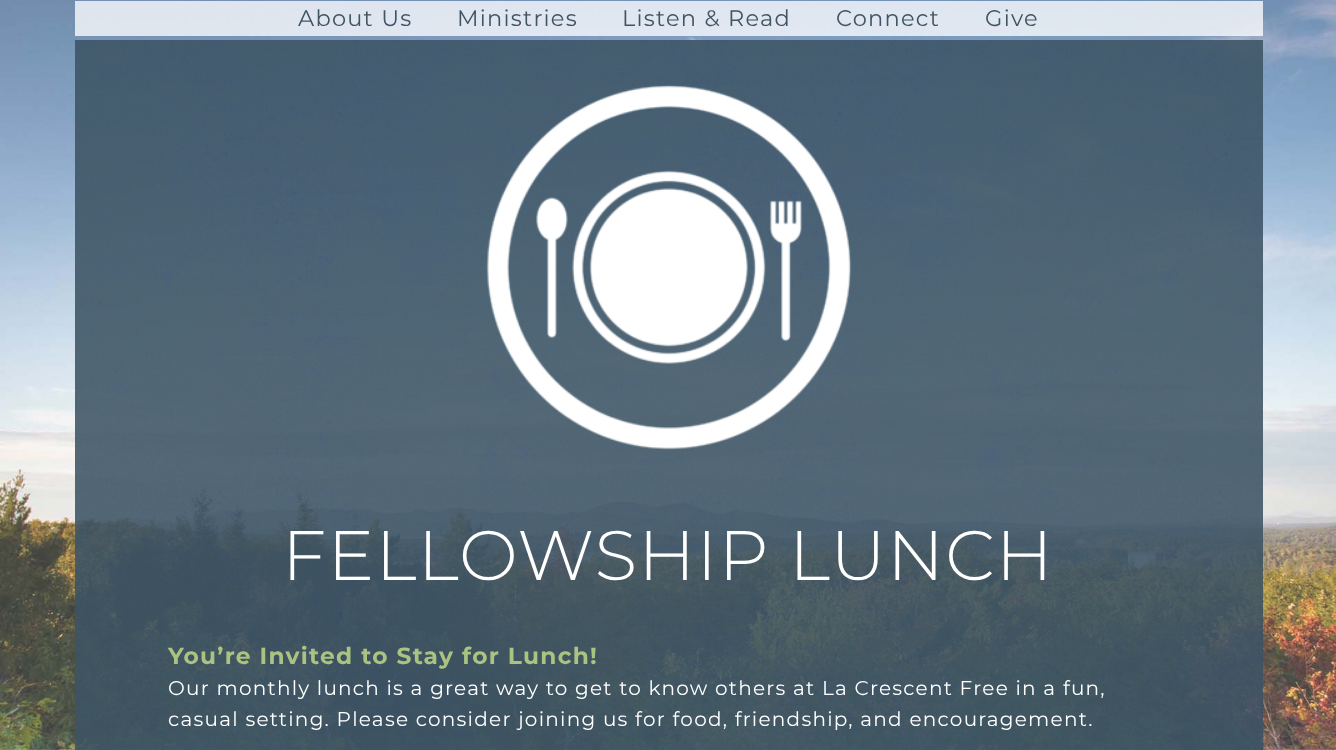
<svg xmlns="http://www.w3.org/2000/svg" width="1336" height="750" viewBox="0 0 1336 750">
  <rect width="100%" height="100%" fill="#fff"/>
  <image x="0" y="0" width="1336" height="750" href="img/1.png"/>
  <path d="M75 1h1188v35H75z" fill="#ffffffc4"/>
  <path d="M75 40h1188v710H75z" fill="#3f5261e0"/>
  <image x="75" y="40" width="1188" height="710" href="img/2.png"/>
  <image x="486" y="85" width="366" height="365" href="img/3.png"/>
  <g font-family="Montserrat" font-size="22.5" letter-spacing="1.25" fill="#415465">
    <text x="298" y="26">About Us</text>
    <text x="457" y="26">Ministries</text>
    <text x="622" y="26">Listen &amp; Read</text>
    <text x="836" y="26">Connect</text>
    <text x="985" y="26">Give</text>
  </g>
  <text x="282" y="580" font-family="Montserrat" font-size="70" font-weight="300" letter-spacing="1.25" fill="#fff">FELLOWSHIP LUNCH</text>
  <text x="168" y="664" font-family="Montserrat" font-size="23.3" font-weight="bold" letter-spacing="1.25" fill="#abc380">You’re Invited to Stay for Lunch!</text>
  <g font-family="Montserrat" font-size="20" letter-spacing="1.25" fill="#fff">
    <text x="168" y="695">Our monthly lunch is a great way to get to know others at La Crescent Free in a fun,</text>
    <text x="168" y="726">casual setting. Please consider joining us for food, friendship, and encouragement.</text>
  </g>
</svg>
